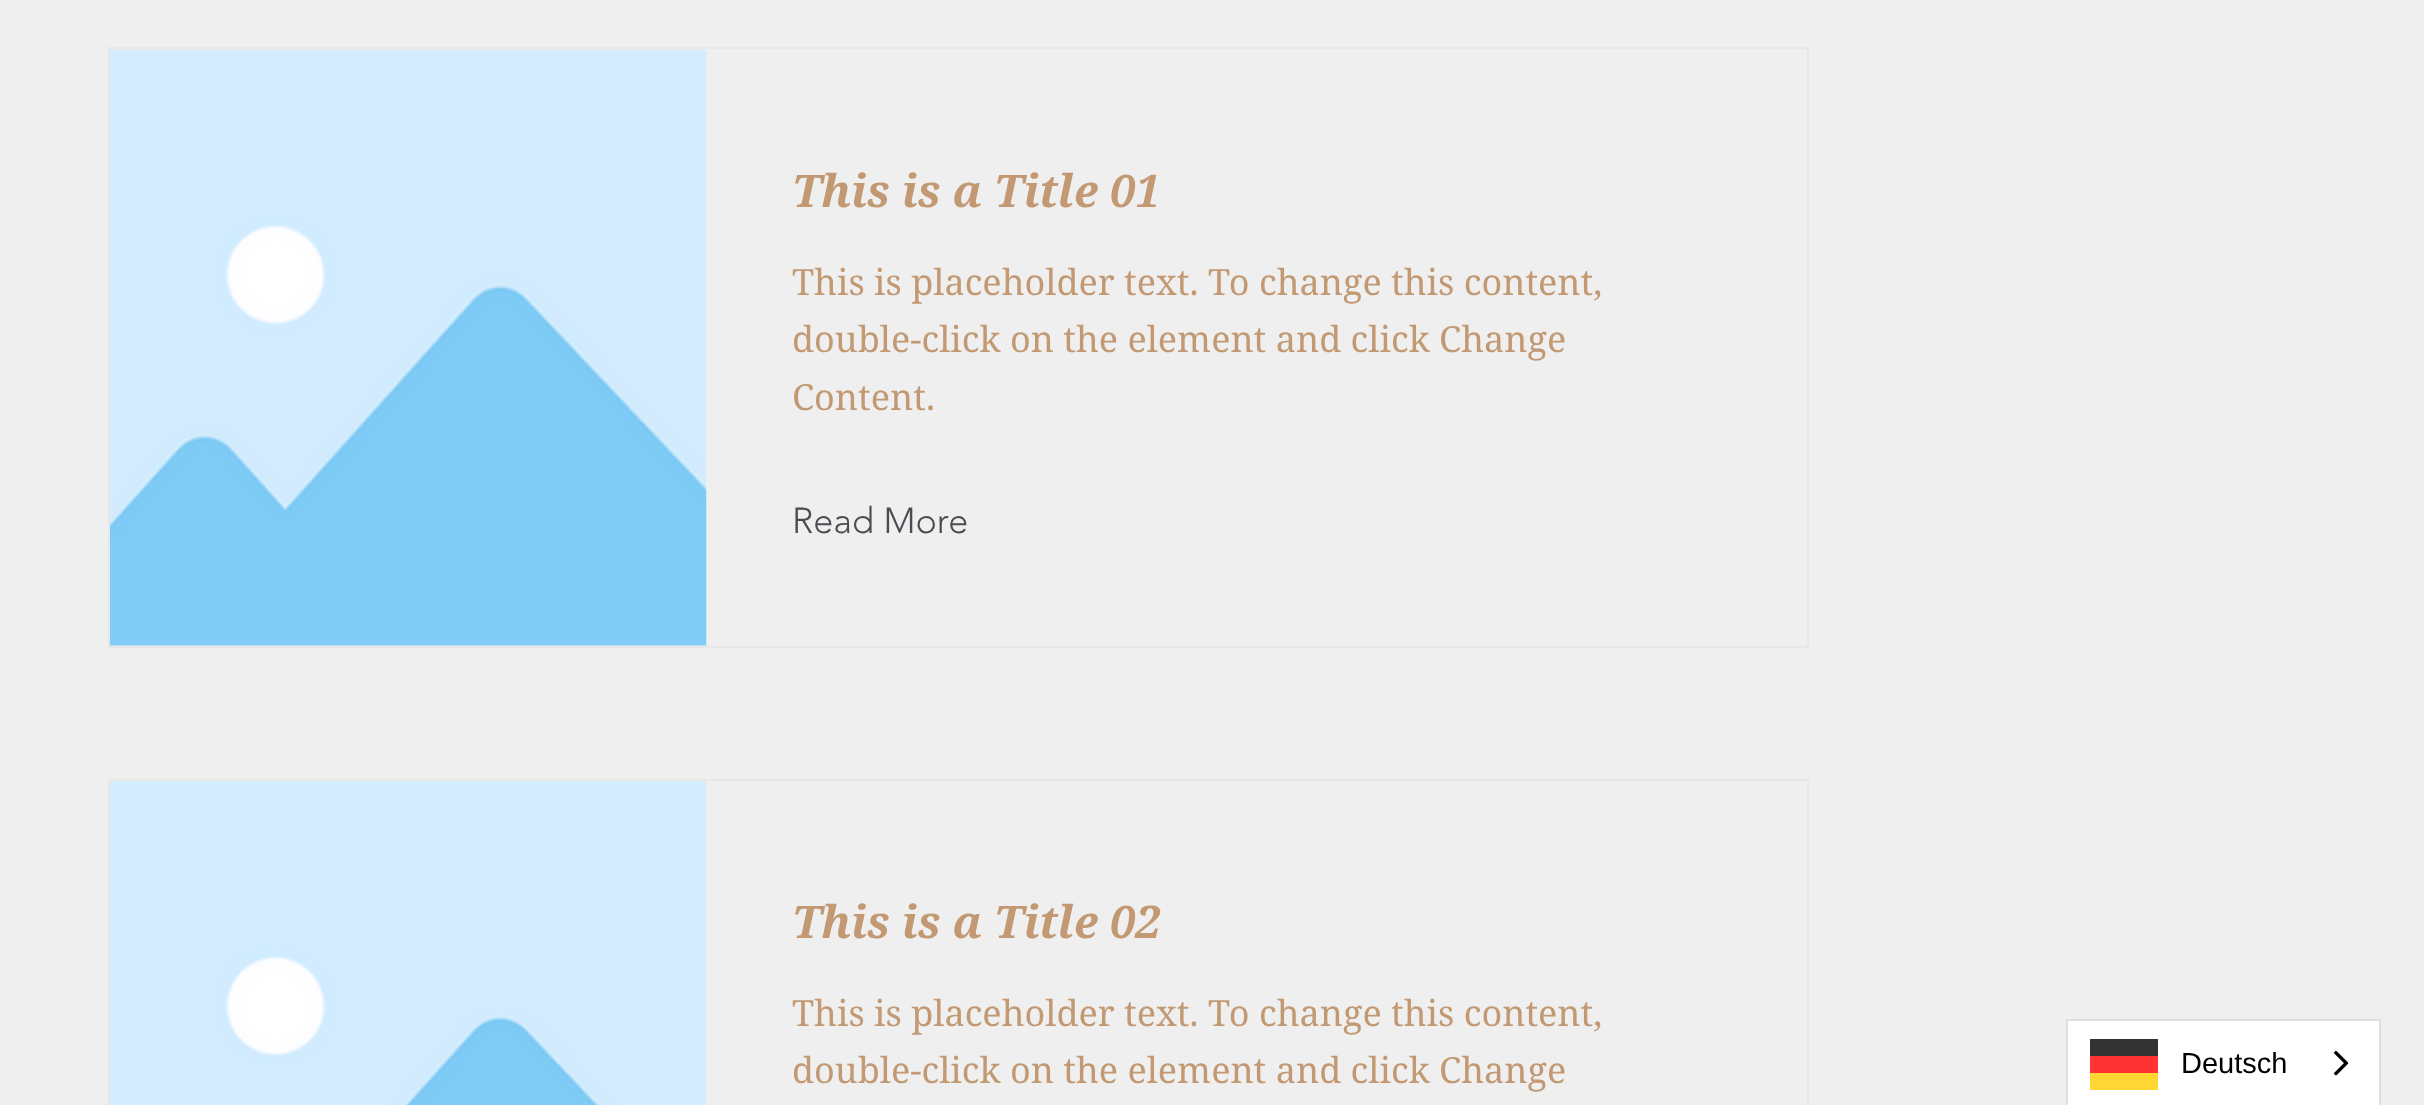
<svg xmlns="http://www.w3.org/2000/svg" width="2424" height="1105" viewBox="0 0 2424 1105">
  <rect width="100%" height="100%" fill="#efefef"/>
  <path d="M109 48h1699v599H109z" fill="none" stroke="#e8e6e6" stroke-width="2"/>
  <image x="110" y="50" width="597" height="596" href="img/1.png"/>
  <path d="M109 780h1699v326H109z" fill="none" stroke="#e8e6e6" stroke-width="2"/>
  <image x="110" y="781" width="597" height="324" href="img/2.png"/>
  <path d="M2067 1020h313v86H2067z" fill="#fff" stroke="#e0e0e0" stroke-width="2"/>
  <path d="M2090 1073h68v17H2090z" fill="#ffd633"/>
  <path d="M2090 1039h68v17H2090z" fill="#333334"/>
  <path d="M2090 1056h68v17H2090z" fill="#f33"/>
  <image x="2333" y="1051" width="16" height="25" href="img/3.png"/>
  <text x="792" y="207" font-family="Noto Serif" font-size="45" font-weight="bold" font-style="italic" fill="#c29972">This is a Title 01</text>
  <g font-family="Noto Serif" font-size="36" fill="#c29972">
    <text x="792" y="295">This is placeholder text. To change this content,</text>
    <text x="792" y="352">double-click on the element and click Change</text>
    <text x="792" y="410">Content.</text>
  </g>
  <text x="792" y="533" font-family="'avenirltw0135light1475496'" font-size="36" font-weight="300" fill="#4a4c52">Read More</text>
  <text x="792" y="938" font-family="Noto Serif" font-size="45" font-weight="bold" font-style="italic" fill="#c29972">This is a Title 02</text>
  <g font-family="Noto Serif" font-size="36" fill="#c29972">
    <text x="792" y="1026">This is placeholder text. To change this content,</text>
    <text x="792" y="1083">double-click on the element and click Change</text>
  </g>
  <text x="2181" y="1073" font-family="Liberation Sans" font-size="29" fill="#000">Deutsch</text>
</svg>
